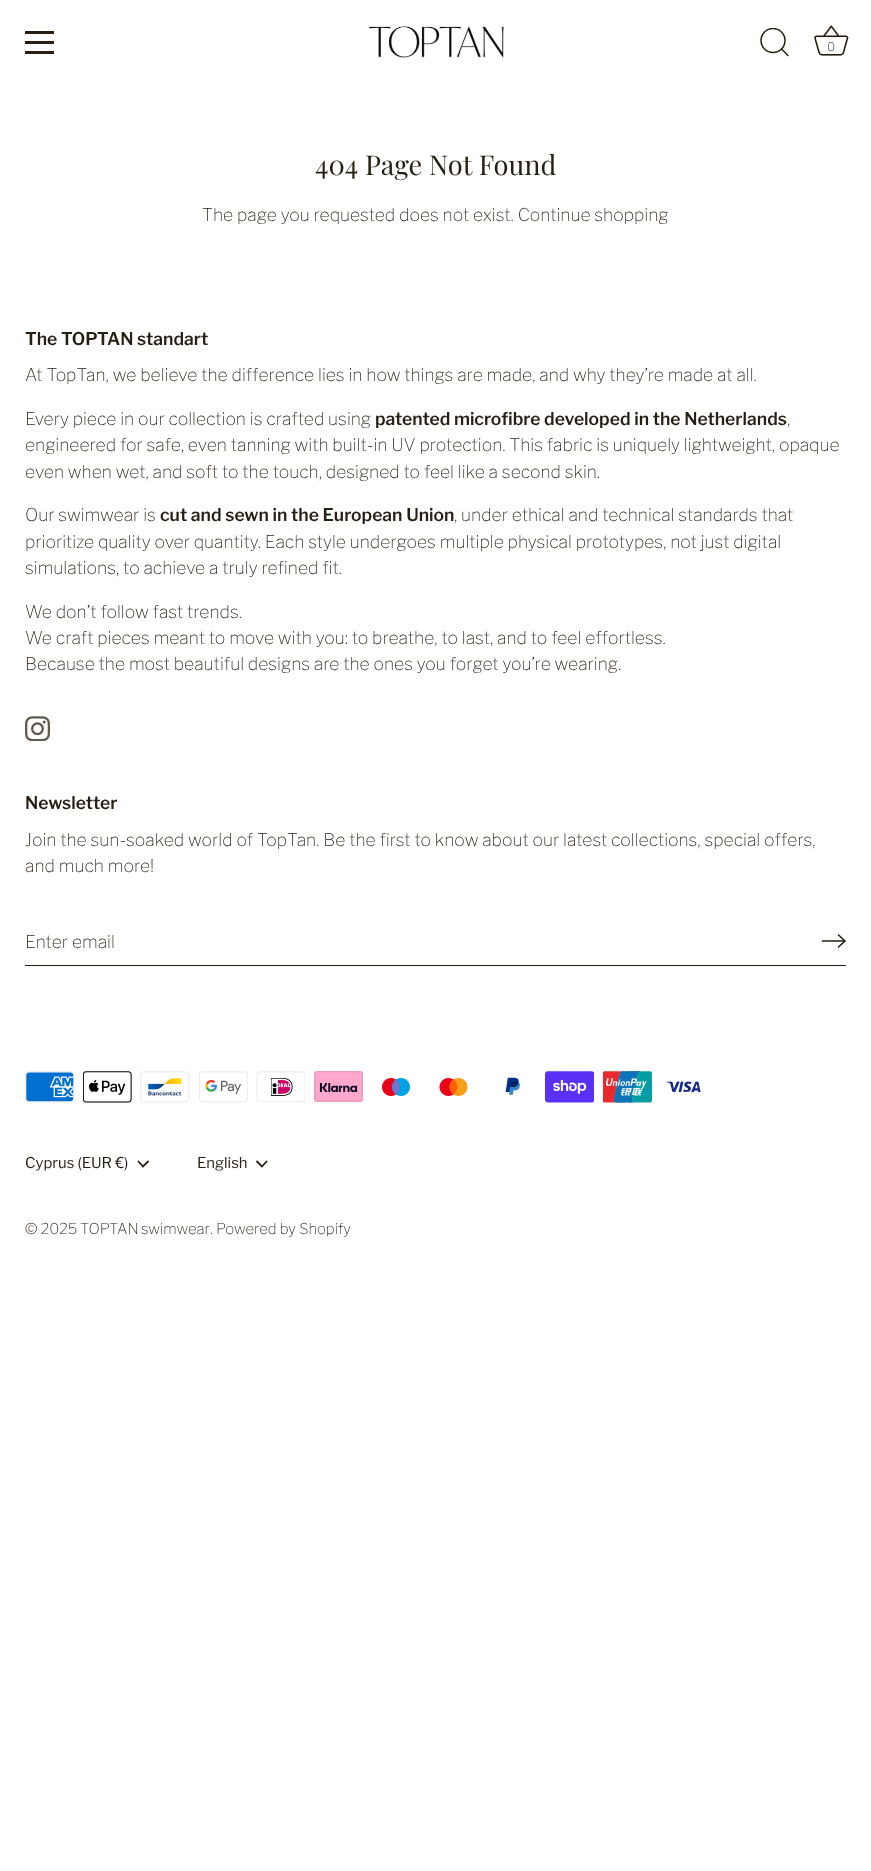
<svg xmlns="http://www.w3.org/2000/svg" width="871" height="1871" viewBox="0 0 871 1871">
  <defs>
    <clipPath id="clip1"><path d="M760 28h30v30H760z"/></clipPath>
  </defs>
  <rect width="100%" height="100%" fill="#fff"/>
  <path d="M25 31h29v3H25z" fill="#281f14"/>
  <path d="M25 41h29v3H25z" fill="#281f14"/>
  <path d="M25 51h29v3H25z" fill="#281f14"/>
  <image x="368" y="26" width="136" height="32" href="img/1.png"/>
  <g clip-path="url(#clip1)">
    <circle cx="773" cy="40.5" r="12" fill="none" stroke="#281f14" stroke-width="1.5"/>
  </g>
  <path d="M788 55.5L781.5 49" fill="none" stroke="#281f14" stroke-width="1.5" stroke-linecap="round" stroke-linejoin="round"/>
  <image x="814" y="25" width="35" height="31" href="img/2.png"/>
  <image x="25" y="716" width="25" height="25" href="img/3.png"/>
  <path d="M25 965h821v1H25z" fill="#281f14"/>
  <path d="M838.5 947L845 941L838.5 935" fill="none" stroke="#281f14" stroke-width="1.6" stroke-linecap="round"/>
  <path d="M844 941H822.5" fill="none" stroke="#281f14" stroke-width="1.6" stroke-linecap="round" stroke-linejoin="round"/>
  <image x="25" y="1071" width="50" height="32" href="img/4.png"/>
  <image x="83" y="1071" width="49" height="32" href="img/5.png"/>
  <image x="140" y="1071" width="50" height="32" href="img/6.png"/>
  <image x="199" y="1071" width="49" height="32" href="img/7.png"/>
  <image x="256" y="1071" width="49" height="31" href="img/8.png"/>
  <image x="314" y="1071" width="49" height="31" href="img/9.png"/>
  <image x="382" y="1078" width="28" height="18" href="img/10.png"/>
  <image x="439" y="1078" width="29" height="18" href="img/11.png"/>
  <image x="505" y="1077" width="15" height="18" href="img/12.png"/>
  <image x="545" y="1071" width="49" height="32" href="img/13.png"/>
  <image x="603" y="1071" width="49" height="32" href="img/14.png"/>
  <image x="666" y="1081" width="35" height="12" href="img/15.png"/>
  <path d="M138.5 1161.5L143 1166.5L148 1161.5" fill="none" stroke="#281f14" stroke-width="1.8" stroke-linecap="round"/>
  <path d="M257 1161.5L262 1166.5L266.5 1161.5" fill="none" stroke="#281f14" stroke-width="1.8" stroke-linecap="round"/>
  <text x="827" y="51" font-family="Libre Franklin" font-size="12" font-weight="100" fill="#281f14">0</text>
  <text x="315" y="175" font-family="Playfair Display" font-size="27.25" fill="#281f14">404 Page Not Found</text>
  <text x="202" y="221" font-family="Libre Franklin" font-size="17.5" font-weight="100" fill="#281f14">The page you requested does not exist. Continue shopping</text>
  <text x="25" y="345" font-family="Libre Franklin" font-size="17.5" font-weight="600" fill="#281f14">The TOPTAN standart</text>
  <g font-family="Libre Franklin" font-size="17.5" font-weight="100" fill="#281f14">
    <text x="25" y="381">At TopTan, we believe the difference lies in how things are made, and why they’re made at all.</text>
    <text x="25" y="425">Every piece in our collection is crafted using</text>
  </g>
  <text x="375" y="425" font-family="Libre Franklin" font-size="17.5" font-weight="600" fill="#281f14">patented microfibre developed in the Netherlands</text>
  <g font-family="Libre Franklin" font-size="17.5" font-weight="100" fill="#281f14">
    <text x="787" y="425">,</text>
    <text x="25" y="451">engineered for safe, even tanning with built-in UV protection. This fabric is uniquely lightweight, opaque</text>
    <text x="25" y="478">even when wet, and soft to the touch, designed to feel like a second skin.</text>
    <text x="25" y="521">Our swimwear is</text>
  </g>
  <text x="160" y="521" font-family="Libre Franklin" font-size="17.5" font-weight="600" fill="#281f14">cut and sewn in the European Union</text>
  <g font-family="Libre Franklin" font-size="17.5" font-weight="100" fill="#281f14">
    <text x="454" y="521">, under ethical and technical standards that</text>
    <text x="25" y="548">prioritize quality over quantity. Each style undergoes multiple physical prototypes, not just digital</text>
    <text x="25" y="574">simulations, to achieve a truly refined fit.</text>
    <text x="25" y="618">We don’t follow fast trends.</text>
    <text x="25" y="644">We craft pieces meant to move with you: to breathe, to last, and to feel effortless.</text>
    <text x="25" y="670">Because the most beautiful designs are the ones you forget you’re wearing.</text>
  </g>
  <text x="25" y="809" font-family="Libre Franklin" font-size="17.5" font-weight="600" fill="#281f14">Newsletter</text>
  <g font-family="Libre Franklin" font-size="17.5" font-weight="100" fill="#281f14">
    <text x="25" y="846">Join the sun-soaked world of TopTan. Be the first to know about our latest collections, special offers,</text>
    <text x="25" y="872">and much more!</text>
    <text x="25" y="948">Enter email</text>
  </g>
  <g font-family="Libre Franklin" font-size="14.9" fill="#281f14">
    <text x="25" y="1168">Cyprus (EUR €)</text>
    <text x="197" y="1168">English</text>
  </g>
  <g font-family="Libre Franklin" font-size="14.9" font-weight="100" fill="#281f14">
    <text x="25" y="1234">© 2025</text>
    <text x="80" y="1234" word-spacing="-1">TOPTAN swimwear</text>
    <text x="210" y="1234">. Powered by Shopify</text>
  </g>
</svg>
